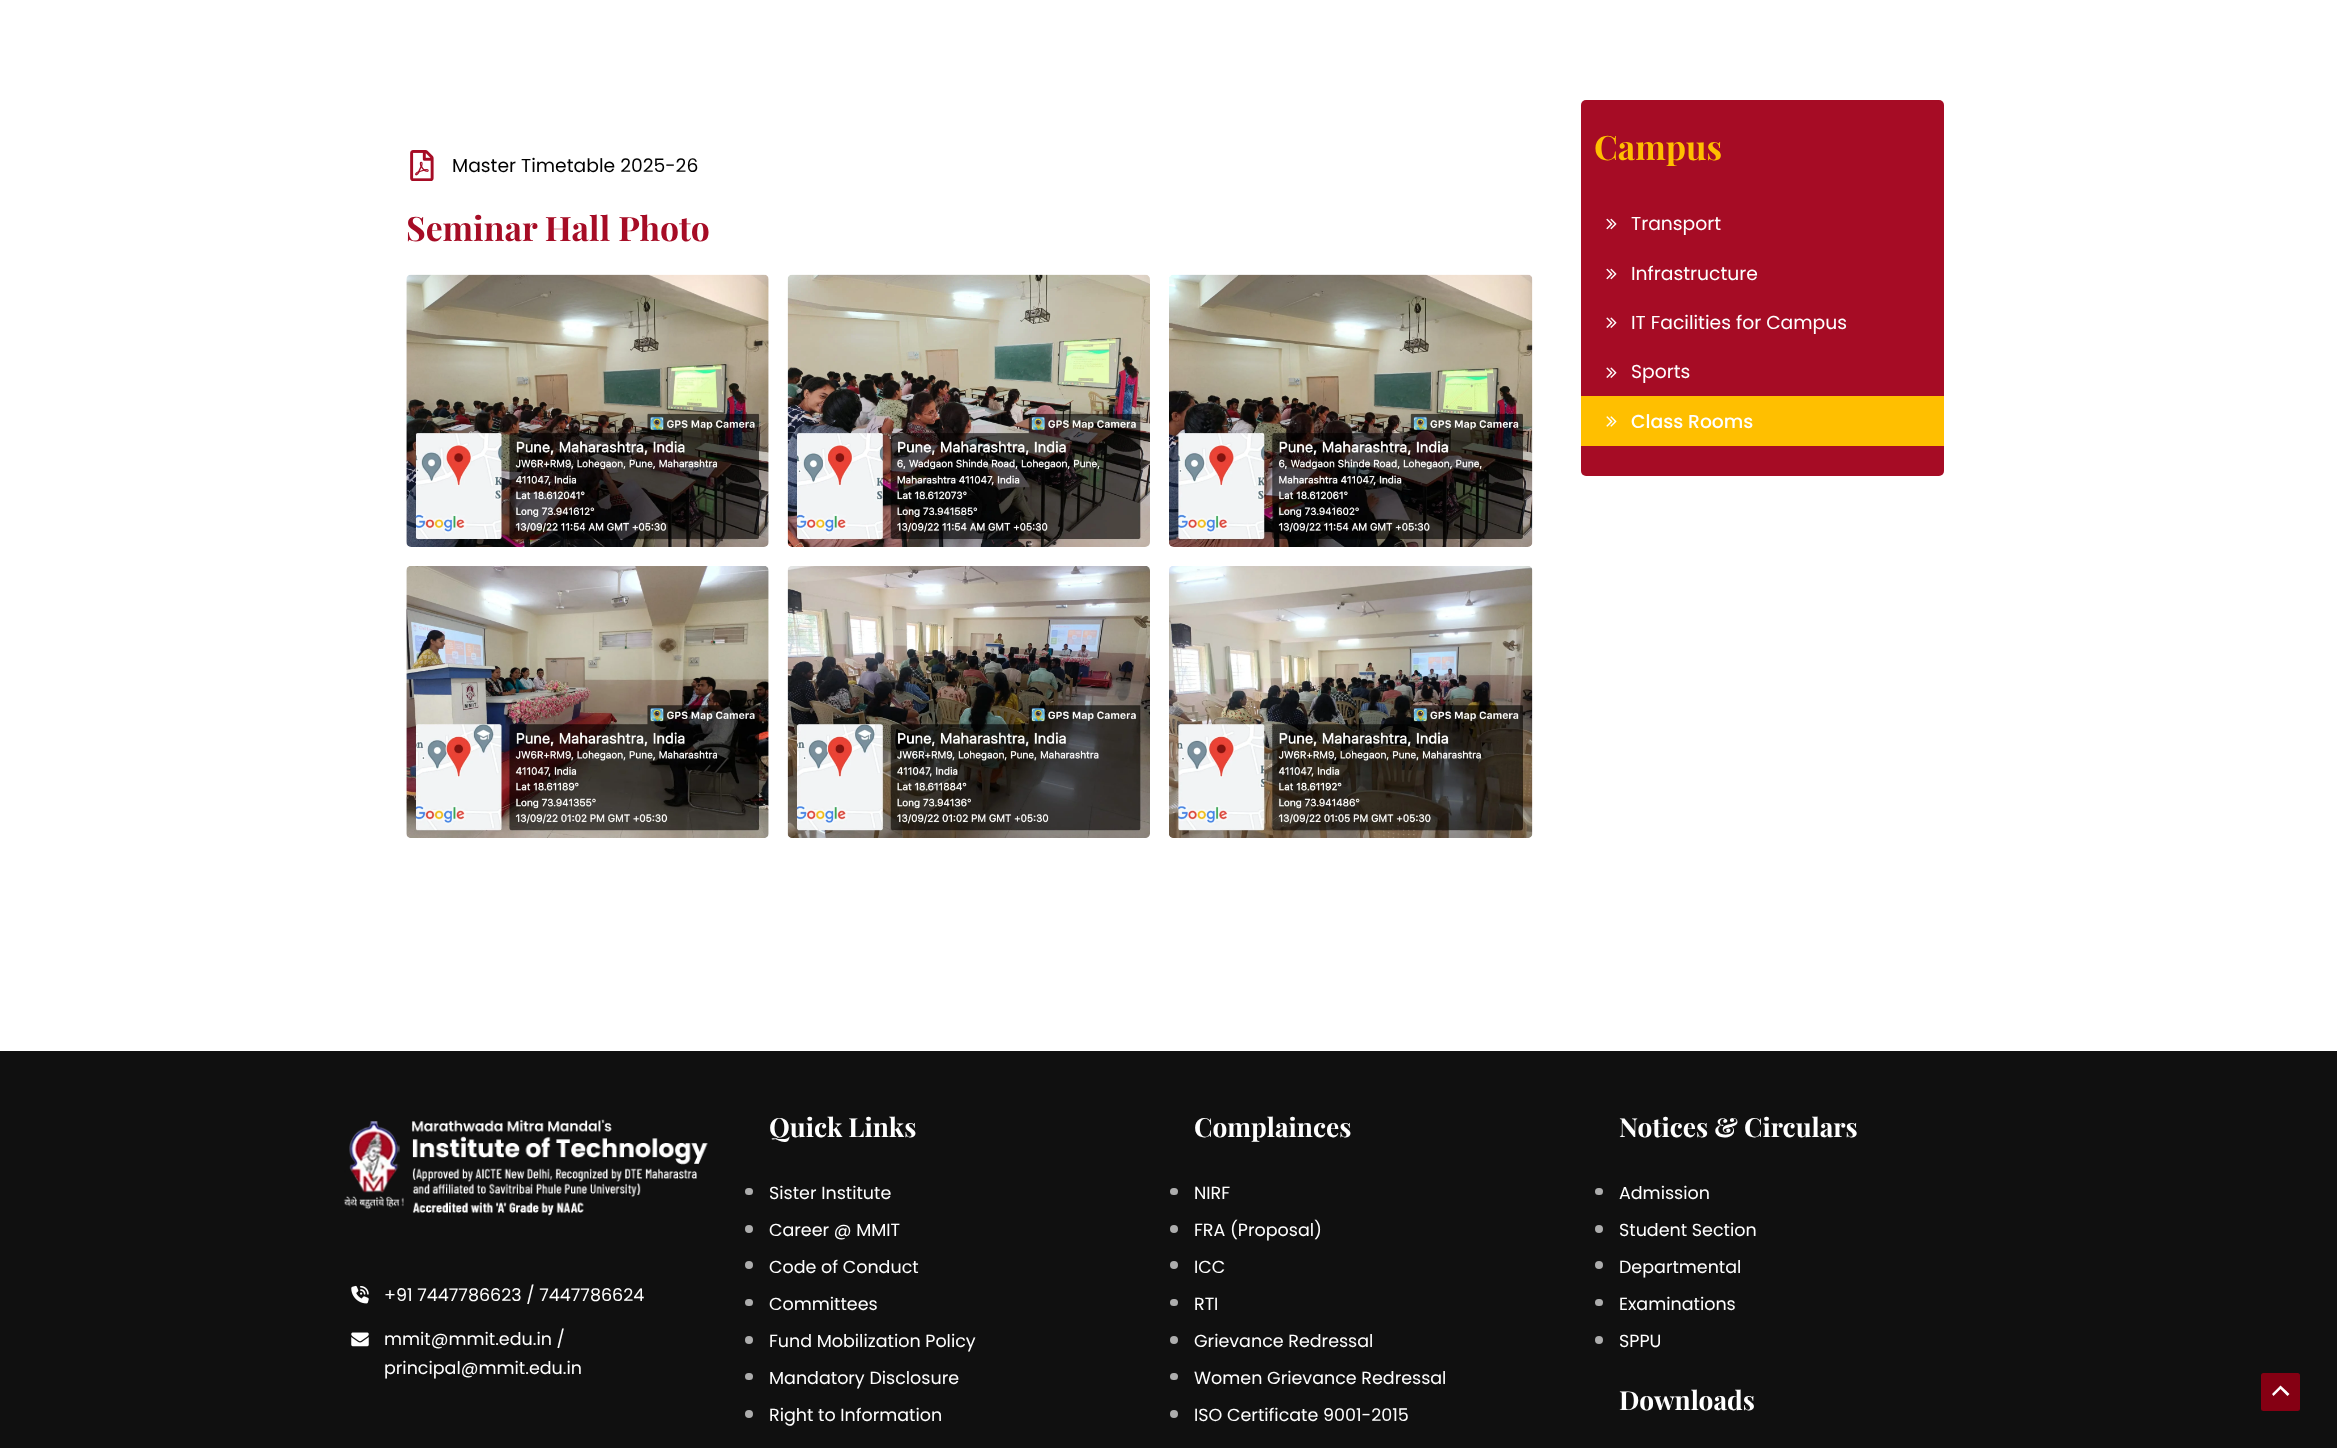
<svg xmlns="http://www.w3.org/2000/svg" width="2337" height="1448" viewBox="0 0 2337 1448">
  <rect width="100%" height="100%" fill="#fff"/>
  <image x="410" y="150" width="24" height="31" href="img/1.png"/>
  <image x="406" y="274" width="363" height="273" href="img/2.png"/>
  <image x="787" y="274" width="363" height="273" href="img/3.png"/>
  <image x="1169" y="274" width="364" height="273" href="img/4.png"/>
  <image x="406" y="566" width="363" height="272" href="img/5.png"/>
  <image x="787" y="566" width="363" height="272" href="img/6.png"/>
  <image x="1169" y="566" width="364" height="272" href="img/7.png"/>
  <rect x="1581" y="100" width="363" height="376" rx="5" fill="#a60c25"/>
  <image x="1606" y="218" width="11" height="12" href="img/8.png"/>
  <image x="1606" y="268" width="11" height="12" href="img/8.png"/>
  <image x="1606" y="317" width="11" height="11" href="img/9.png"/>
  <image x="1606" y="367" width="11" height="11" href="img/9.png"/>
  <path d="M1581 396h363v50H1581z" fill="#ffbf00"/>
  <image x="1606" y="416" width="11" height="11" href="img/10.png"/>
  <path d="M0 1051h2337v397H0z" fill="#101010"/>
  <image x="343" y="1119" width="365" height="97" href="img/11.png"/>
  <image x="351" y="1285" width="18" height="19" href="img/12.png"/>
  <image x="351" y="1332" width="18" height="15" href="img/13.png"/>
  <rect x="745" y="1188" width="8" height="7" rx="3.5" fill="#adadad"/>
  <circle cx="749" cy="1229" r="4" fill="#adadad"/>
  <circle cx="749" cy="1265" r="4" fill="#adadad"/>
  <rect x="745" y="1299" width="8" height="7" rx="3.5" fill="#adadad"/>
  <circle cx="749" cy="1340" r="4" fill="#adadad"/>
  <rect x="745" y="1373" width="8" height="7" rx="3.5" fill="#adadad"/>
  <circle cx="749" cy="1414" r="4" fill="#adadad"/>
  <rect x="1170" y="1188" width="8" height="7" rx="3.5" fill="#adadad"/>
  <circle cx="1174" cy="1229" r="4" fill="#adadad"/>
  <circle cx="1174" cy="1265" r="4" fill="#adadad"/>
  <rect x="1170" y="1299" width="8" height="7" rx="3.5" fill="#adadad"/>
  <circle cx="1174" cy="1340" r="4" fill="#adadad"/>
  <rect x="1170" y="1373" width="8" height="7" rx="3.5" fill="#adadad"/>
  <circle cx="1174" cy="1414" r="4" fill="#adadad"/>
  <rect x="1595" y="1188" width="8" height="7" rx="3.5" fill="#adadad"/>
  <circle cx="1599" cy="1229" r="4" fill="#adadad"/>
  <circle cx="1599" cy="1265" r="4" fill="#adadad"/>
  <rect x="1595" y="1299" width="8" height="7" rx="3.5" fill="#adadad"/>
  <circle cx="1599" cy="1340" r="4" fill="#adadad"/>
  <rect x="2261" y="1373" width="39" height="38" rx="2.5" fill="#850013"/>
  <path d="M2289.5 1394L2280.5 1385.5L2272 1394L2273.5 1396L2280.5 1389L2287.5 1396Z" fill="#fff"/>
  <text x="452" y="172" font-family="Poppins" font-size="18.75" fill="#000">Master Timetable 2025-26</text>
  <text x="406" y="241" font-family="Playfair Display" font-size="33.75" font-weight="bold" fill="#a60c25">Seminar Hall Photo</text>
  <text x="1594" y="160" font-family="Playfair Display" font-size="33.75" font-weight="bold" fill="#ffbf00">Campus</text>
  <g font-family="Poppins" font-size="18.75" fill="#fff">
    <text x="1631" y="230">Transport</text>
    <text x="1631" y="280">Infrastructure</text>
    <text x="1631" y="329">IT Facilities for Campus</text>
    <text x="1631" y="378">Sports</text>
  </g>
  <text x="1631" y="428" font-family="Poppins" font-size="18.75" font-weight="500" fill="#fff">Class Rooms</text>
  <g font-family="Poppins" font-size="17.5" fill="#fff">
    <text x="384" y="1301">+91 7447786623 / 7447786624</text>
    <text x="384" y="1345">mmit@mmit.edu.in /</text>
    <text x="384" y="1374">principal@mmit.edu.in</text>
  </g>
  <text x="769" y="1137" font-family="Playfair Display" font-size="26.25" font-weight="bold" fill="#fff">Quick Links</text>
  <g font-family="Poppins" font-size="17.5" fill="#fff">
    <text x="769" y="1199">Sister Institute</text>
    <text x="769" y="1236">Career @ MMIT</text>
    <text x="769" y="1273">Code of Conduct</text>
    <text x="769" y="1310">Committees</text>
    <text x="769" y="1347">Fund Mobilization Policy</text>
    <text x="769" y="1384">Mandatory Disclosure</text>
    <text x="769" y="1421">Right to Information</text>
  </g>
  <text x="1194" y="1137" font-family="Playfair Display" font-size="26.25" font-weight="bold" fill="#fff">Complainces</text>
  <g font-family="Poppins" font-size="17.5" fill="#fff">
    <text x="1194" y="1199">NIRF</text>
    <text x="1194" y="1236">FRA (Proposal)</text>
    <text x="1194" y="1273">ICC</text>
    <text x="1194" y="1310">RTI</text>
    <text x="1194" y="1347">Grievance Redressal</text>
    <text x="1194" y="1384">Women Grievance Redressal</text>
    <text x="1194" y="1421">ISO Certificate 9001-2015</text>
  </g>
  <text x="1619" y="1137" font-family="Playfair Display" font-size="26.25" font-weight="bold" fill="#fff">Notices &amp; Circulars</text>
  <g font-family="Poppins" font-size="17.5" fill="#fff">
    <text x="1619" y="1199">Admission</text>
    <text x="1619" y="1236">Student Section</text>
    <text x="1619" y="1273">Departmental</text>
    <text x="1619" y="1310">Examinations</text>
    <text x="1619" y="1347">SPPU</text>
  </g>
  <text x="1619" y="1410" font-family="Playfair Display" font-size="26.25" font-weight="bold" fill="#fff">Downloads</text>
</svg>
